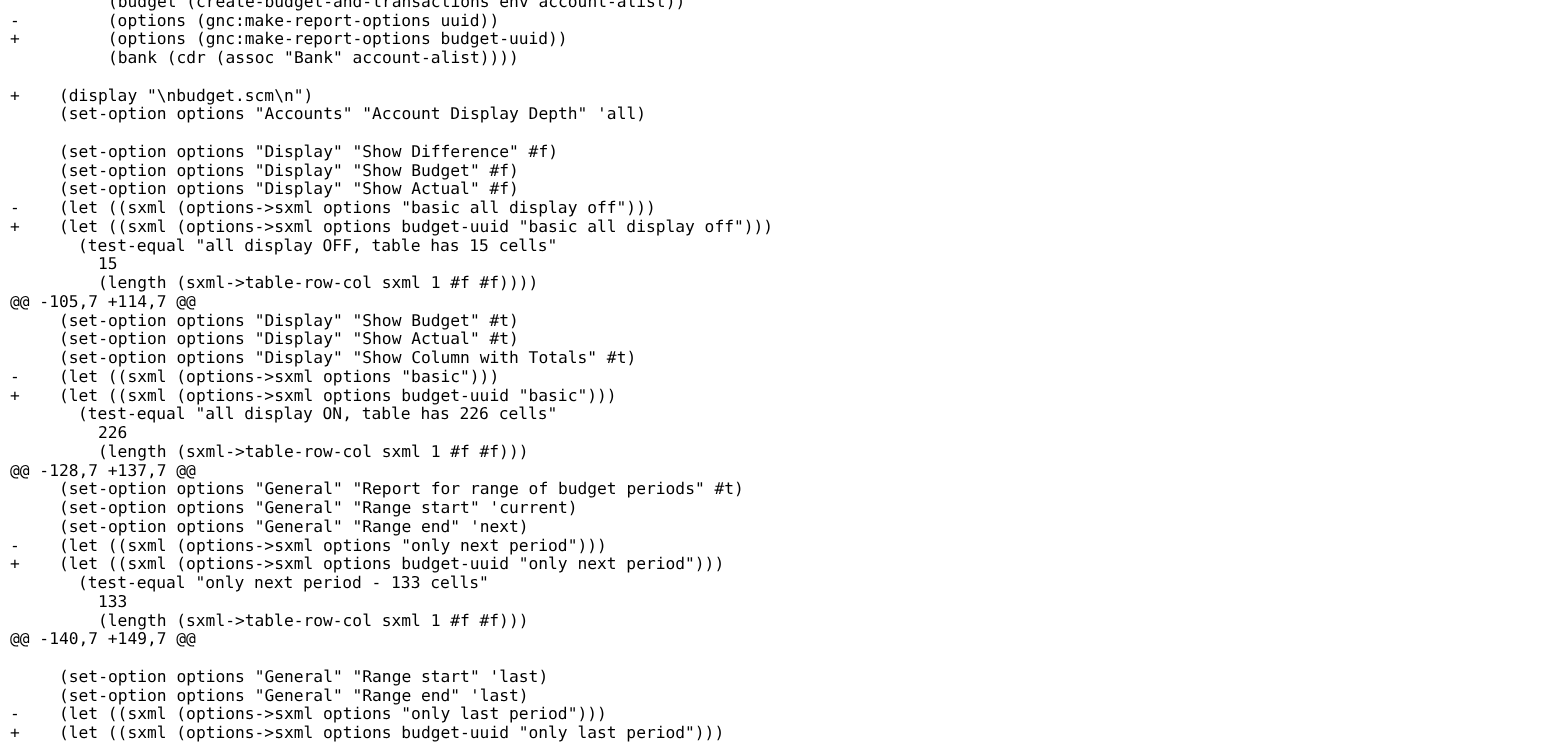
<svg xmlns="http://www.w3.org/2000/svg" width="1561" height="749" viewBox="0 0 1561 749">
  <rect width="100%" height="100%" fill="#fff"/>
  <g font-family="DejaVu Sans Mono" font-size="16.25" fill="#000">
    <text x="108" y="7">(budget (create-budget-and-transactions env account-alist))</text>
    <text x="10" y="26" xml:space="preserve">-         (options (gnc:make-report-options uuid))</text>
    <text x="10" y="44" xml:space="preserve">+         (options (gnc:make-report-options budget-uuid))</text>
    <text x="108" y="63">(bank (cdr (assoc "Bank" account-alist))))</text>
    <text x="10" y="101" xml:space="preserve">+    (display "\nbudget.scm\n")</text>
    <text x="59" y="119">(set-option options "Accounts" "Account Display Depth" 'all)</text>
    <text x="59" y="157">(set-option options "Display" "Show Difference" #f)</text>
    <text x="59" y="176">(set-option options "Display" "Show Budget" #f)</text>
    <text x="59" y="194">(set-option options "Display" "Show Actual" #f)</text>
    <text x="10" y="213" xml:space="preserve">-    (let ((sxml (options-&gt;sxml options "basic all display off")))</text>
    <text x="10" y="232" xml:space="preserve">+    (let ((sxml (options-&gt;sxml options budget-uuid "basic all display off")))</text>
    <text x="78" y="251">(test-equal "all display OFF, table has 15 cells"</text>
    <text x="98" y="269">15</text>
    <text x="98" y="288">(length (sxml-&gt;table-row-col sxml 1 #f #f))))</text>
    <text x="10" y="307">@@ -105,7 +114,7 @@</text>
    <text x="59" y="326">(set-option options "Display" "Show Budget" #t)</text>
    <text x="59" y="344">(set-option options "Display" "Show Actual" #t)</text>
    <text x="59" y="363">(set-option options "Display" "Show Column with Totals" #t)</text>
    <text x="10" y="382" xml:space="preserve">-    (let ((sxml (options-&gt;sxml options "basic")))</text>
    <text x="10" y="401" xml:space="preserve">+    (let ((sxml (options-&gt;sxml options budget-uuid "basic")))</text>
    <text x="78" y="419">(test-equal "all display ON, table has 226 cells"</text>
    <text x="98" y="438">226</text>
    <text x="98" y="457">(length (sxml-&gt;table-row-col sxml 1 #f #f)))</text>
    <text x="10" y="476">@@ -128,7 +137,7 @@</text>
    <text x="59" y="494">(set-option options "General" "Report for range of budget periods" #t)</text>
    <text x="59" y="513">(set-option options "General" "Range start" 'current)</text>
    <text x="59" y="532">(set-option options "General" "Range end" 'next)</text>
    <text x="10" y="551" xml:space="preserve">-    (let ((sxml (options-&gt;sxml options "only next period")))</text>
    <text x="10" y="569" xml:space="preserve">+    (let ((sxml (options-&gt;sxml options budget-uuid "only next period")))</text>
    <text x="78" y="588">(test-equal "only next period - 133 cells"</text>
    <text x="98" y="607">133</text>
    <text x="98" y="626">(length (sxml-&gt;table-row-col sxml 1 #f #f)))</text>
    <text x="10" y="644">@@ -140,7 +149,7 @@</text>
    <text x="59" y="682">(set-option options "General" "Range start" 'last)</text>
    <text x="59" y="701">(set-option options "General" "Range end" 'last)</text>
    <text x="10" y="719" xml:space="preserve">-    (let ((sxml (options-&gt;sxml options "only last period")))</text>
    <text x="10" y="738" xml:space="preserve">+    (let ((sxml (options-&gt;sxml options budget-uuid "only last period")))</text>
  </g>
</svg>
